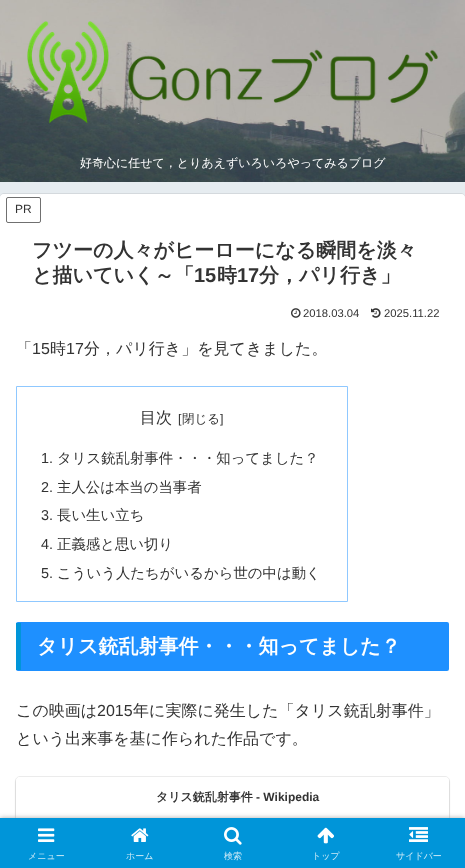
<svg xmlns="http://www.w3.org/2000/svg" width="465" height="868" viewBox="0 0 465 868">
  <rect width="100%" height="100%" fill="#e6ecf0"/>
  <image x="0" y="0" width="465" height="182" href="img/1.png"/>
  <image x="27" y="21" width="411" height="103" href="img/2.png"/>
  <rect x="-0.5" y="193.5" width="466" height="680" rx="4.5" fill="none" stroke="#d4d9dd"/>
  <rect y="194" width="465" height="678" rx="4" fill="#fff"/>
  <rect x="6.5" y="197.5" width="34" height="25" rx="1.5" fill="none" stroke="#707070"/>
  <image x="291" y="308" width="10" height="10" href="img/3.png"/>
  <image x="371" y="308" width="10" height="10" href="img/4.png"/>
  <path d="M16.5 386.5h331v215H16.5z" fill="none" stroke="#8fc8ff"/>
  <rect x="16" y="622" width="433" height="49" rx="2" fill="#1e90ff"/>
  <path d="M16 623h5v47H16z" fill="#0095d9"/>
  <rect x="15.5" y="776.5" width="434" height="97" rx="4.5" fill="none" stroke="#ebebeb"/>
  <rect x="16" y="779" width="433" height="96" rx="4" fill="#00000029" filter="blur(1px)"/>
  <rect x="16" y="777" width="433" height="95" rx="4" fill="#fff"/>
  <path d="M0 818h465v50H0z" fill="#a9a9a9" filter="blur(2.5px)"/>
  <path d="M0 818h465v50H0z" fill="#0095d9"/>
  <image x="38" y="828" width="17" height="14" href="img/5.png"/>
  <image x="131" y="828" width="18" height="14" href="img/6.png"/>
  <image x="224" y="827" width="18" height="18" href="img/7.png"/>
  <image x="317" y="827" width="17" height="17" href="img/8.png"/>
  <image x="409" y="827" width="19" height="15" href="img/9.png"/>
  <text x="80" y="167" font-family="WenQuanYi Zen Hei" font-size="12" font-weight="500" fill="#fff">好奇心に任せて，とりあえずいろいろやってみるブログ</text>
  <text x="15" y="213" font-family="Liberation Sans" font-size="12" fill="#333">PR</text>
  <g font-family="WenQuanYi Zen Hei" font-size="20" font-weight="bold" fill="#333">
    <text x="32" y="257">フツーの人々がヒーローになる瞬間を淡々</text>
    <text x="32" y="282">と描いていく～「</text>
  </g>
  <text x="194" y="282" font-family="Liberation Sans" font-size="20" font-weight="bold" fill="#333">15</text>
  <text x="217" y="282" font-family="WenQuanYi Zen Hei" font-size="20" font-weight="bold" fill="#333">時</text>
  <text x="237" y="282" font-family="Liberation Sans" font-size="20" font-weight="bold" fill="#333">17</text>
  <text x="259" y="282" font-family="WenQuanYi Zen Hei" font-size="20" font-weight="bold" fill="#333">分，パリ行き」</text>
  <g font-family="Liberation Sans" font-size="11.25" fill="#333">
    <text x="303" y="317">2018.03.04</text>
    <text x="384" y="317">2025.11.22</text>
  </g>
  <text x="16" y="354" font-family="WenQuanYi Zen Hei" font-size="16" font-weight="500" fill="#333">「</text>
  <text x="32" y="354" font-family="Liberation Sans" font-size="16" fill="#333">15</text>
  <text x="50" y="354" font-family="WenQuanYi Zen Hei" font-size="16" font-weight="500" fill="#333">時</text>
  <text x="66" y="354" font-family="Liberation Sans" font-size="16" fill="#333">17</text>
  <g font-family="WenQuanYi Zen Hei" font-size="16" font-weight="500" fill="#333">
    <text x="84" y="354">分，パリ行き」を見てきました。</text>
    <text x="140" y="423">目次</text>
  </g>
  <text x="178" y="423" font-family="Liberation Sans" font-size="12.5" fill="#333">[</text>
  <text x="182" y="423" font-family="WenQuanYi Zen Hei" font-size="12.5" font-weight="500" fill="#333">閉じる</text>
  <text x="220" y="423" font-family="Liberation Sans" font-size="12.5" fill="#333">]</text>
  <text x="41" y="463" font-family="Liberation Sans" font-size="14.4" fill="#333">1.</text>
  <text x="57" y="463" font-family="WenQuanYi Zen Hei" font-size="14.4" font-weight="500" fill="#333">タリス銃乱射事件・・・知ってました？</text>
  <text x="41" y="492" font-family="Liberation Sans" font-size="14.4" fill="#333">2.</text>
  <text x="57" y="492" font-family="WenQuanYi Zen Hei" font-size="14.4" font-weight="500" fill="#333">主人公は本当の当事者</text>
  <text x="41" y="520" font-family="Liberation Sans" font-size="14.4" fill="#333">3.</text>
  <text x="57" y="520" font-family="WenQuanYi Zen Hei" font-size="14.4" font-weight="500" fill="#333">長い生い立ち</text>
  <text x="41" y="549" font-family="Liberation Sans" font-size="14.4" fill="#333">4.</text>
  <text x="57" y="549" font-family="WenQuanYi Zen Hei" font-size="14.4" font-weight="500" fill="#333">正義感と思い切り</text>
  <text x="41" y="578" font-family="Liberation Sans" font-size="14.4" fill="#333">5.</text>
  <text x="57" y="578" font-family="WenQuanYi Zen Hei" font-size="14.4" font-weight="500" fill="#333">こういう人たちがいるから世の中は動く</text>
  <text x="37" y="653" font-family="WenQuanYi Zen Hei" font-size="20" font-weight="bold" fill="#fff">タリス銃乱射事件・・・知ってました？</text>
  <text x="16" y="716" font-family="WenQuanYi Zen Hei" font-size="16" font-weight="500" fill="#333">この映画は</text>
  <text x="97" y="716" font-family="Liberation Sans" font-size="16" fill="#333">2015</text>
  <g font-family="WenQuanYi Zen Hei" font-size="16" font-weight="500" fill="#333">
    <text x="133" y="716">年に実際に発生した「タリス銃乱射事件」</text>
    <text x="16" y="744">という出来事を基に作られた作品です。</text>
  </g>
  <text x="156" y="801" font-family="WenQuanYi Zen Hei" font-size="12" font-weight="bold" fill="#333">タリス銃乱射事件</text>
  <text x="256" y="801" font-family="Liberation Sans" font-size="12" font-weight="bold" fill="#333">- Wikipedia</text>
  <g font-family="WenQuanYi Zen Hei" font-size="9" font-weight="500" fill="#cceaf7">
    <text x="28" y="859">メニュー</text>
    <text x="126" y="859">ホーム</text>
    <text x="224" y="859">検索</text>
    <text x="312" y="859">トップ</text>
    <text x="396" y="859">サイドバー</text>
  </g>
</svg>
